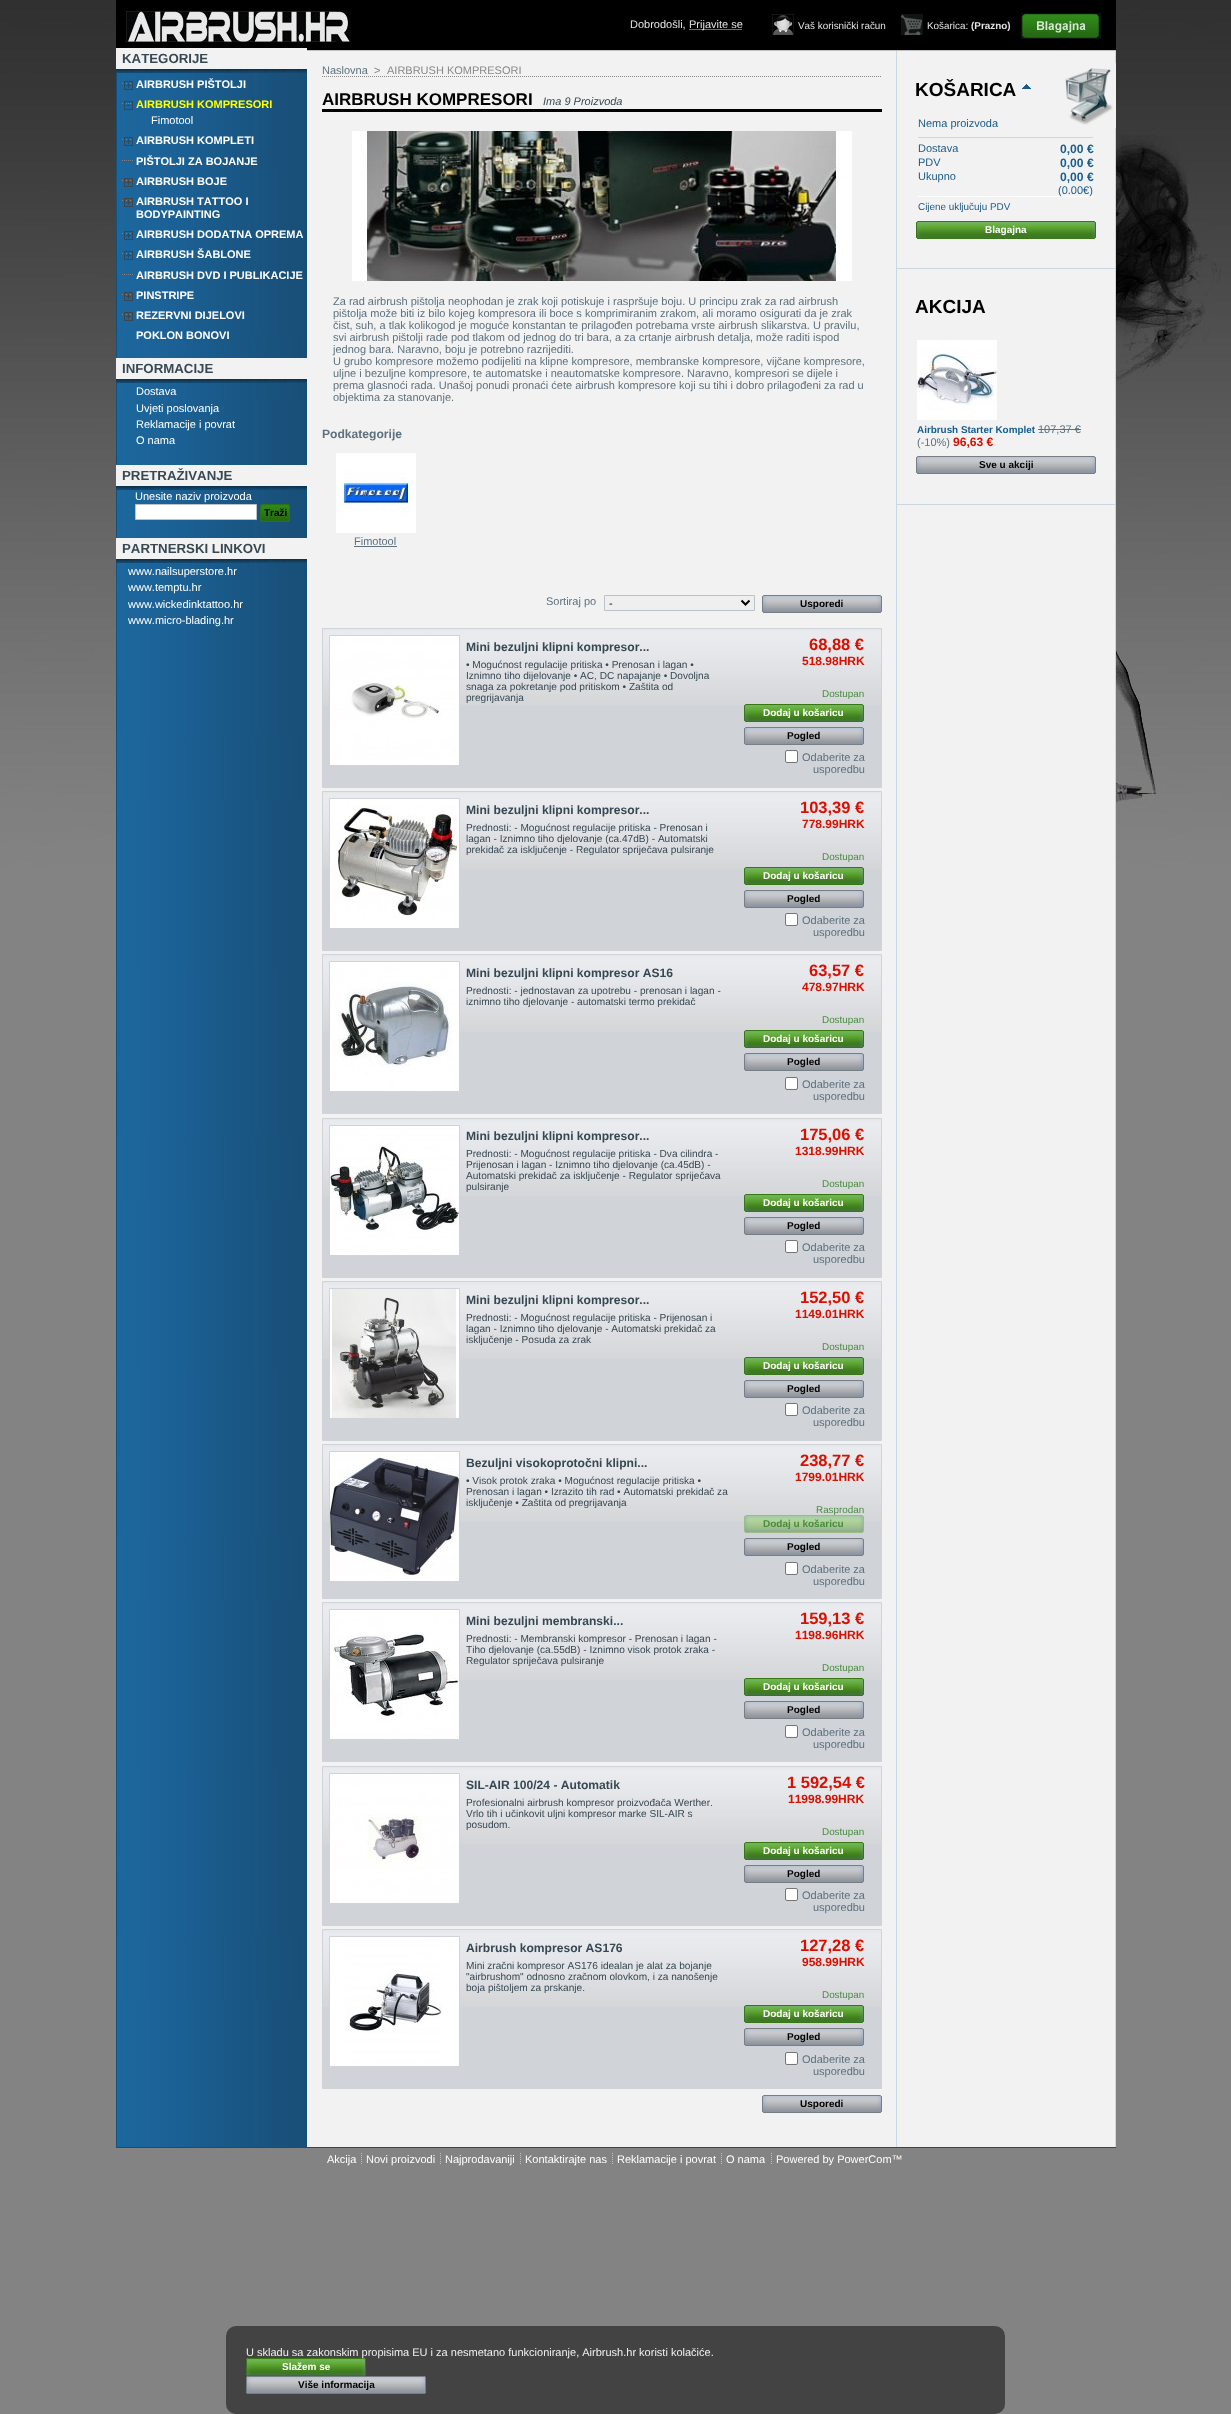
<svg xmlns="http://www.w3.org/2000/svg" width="1231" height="2414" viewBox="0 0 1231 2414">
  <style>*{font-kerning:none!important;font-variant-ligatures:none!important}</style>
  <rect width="100%" height="100%" fill="#838383"/>
  <image x="0" y="0" width="1231" height="923" href="img/1.png"/>
  <image x="116" y="51" width="1000" height="2096" href="img/2.png"/>
  <path d="M116 0h1000v50H116z" fill="#000"/>
  <path d="M307 50h809v1H307z" fill="#c0c0c0"/>
  <image x="126" y="11" width="225" height="31" href="img/3.png"/>
  <path d="M689 29h53v1H689z" fill="#5d717e"/>
  <image x="772" y="14" width="22" height="21" href="img/4.png"/>
  <image x="901" y="14" width="22" height="21" href="img/5.png"/>
  <image x="1021" y="13" width="80" height="26" href="img/6.png"/>
  <rect x="226" y="2326" width="779" height="88" rx="10" fill="#434343"/>
  <image x="246" y="2358" width="120" height="18" href="img/7.png"/>
  <image x="246" y="2376" width="180" height="18" href="img/8.png"/>
  <image x="116" y="48" width="191" height="25" href="img/9.png"/>
  <image x="122" y="83" width="9" height="1" href="img/10.png"/>
  <image x="124" y="81" width="9" height="9" href="img/11.png"/>
  <image x="122" y="103" width="9" height="1" href="img/10.png"/>
  <image x="124" y="101" width="9" height="9" href="img/12.png"/>
  <image x="122" y="139" width="9" height="1" href="img/10.png"/>
  <image x="124" y="137" width="9" height="9" href="img/11.png"/>
  <image x="122" y="160" width="11" height="1" href="img/13.png"/>
  <image x="122" y="180" width="9" height="1" href="img/14.png"/>
  <image x="124" y="178" width="9" height="9" href="img/11.png"/>
  <image x="122" y="200" width="9" height="1" href="img/14.png"/>
  <image x="124" y="198" width="9" height="9" href="img/11.png"/>
  <image x="122" y="233" width="9" height="1" href="img/14.png"/>
  <image x="124" y="231" width="9" height="9" href="img/11.png"/>
  <image x="122" y="253" width="9" height="1" href="img/14.png"/>
  <image x="124" y="251" width="9" height="9" href="img/11.png"/>
  <image x="122" y="274" width="11" height="1" href="img/15.png"/>
  <image x="122" y="294" width="9" height="1" href="img/14.png"/>
  <image x="124" y="292" width="9" height="9" href="img/11.png"/>
  <image x="122" y="314" width="9" height="1" href="img/14.png"/>
  <image x="124" y="312" width="9" height="9" href="img/11.png"/>
  <image x="116" y="358" width="191" height="25" href="img/9.png"/>
  <image x="116" y="465" width="191" height="25" href="img/9.png"/>
  <path d="M135.5 504.5h121v15H135.5z" fill="#fff" stroke="#bdc2c9"/>
  <image x="260" y="504" width="30" height="18" href="img/16.png"/>
  <image x="116" y="538" width="191" height="25" href="img/9.png"/>
  <path d="M322 76.5H882" fill="none" stroke="#888" stroke-dasharray="1 1"/>
  <path d="M322 109h560v3H322z" fill="#000"/>
  <image x="352" y="131" width="500" height="150" href="img/17.png"/>
  <image x="336" y="453" width="80" height="80" href="img/18.png"/>
  <path d="M354 546h43v1H354z" fill="#5d717e"/>
  <path d="M604.5 595.5h150v15H604.5z" fill="#efefef" stroke="#bdc2c9"/>
  <path d="M741.5 600.5L745.5 604.5L749.5 600.5" fill="none" stroke="#000" stroke-width="2"/>
  <path d="M762 595h120v18H762z" fill="#efefef"/>
  <image x="762" y="595" width="120" height="18" href="img/19.png"/>
  <path d="M323 706h558v81H323z" fill="#d0d3d8"/>
  <image x="323" y="629" width="558" height="77" href="img/20.png"/>
  <path d="M322.5 628.5h559v159H322.5z" fill="none" stroke="#d0d3d8"/>
  <path d="M329.5 635.5h130v130H329.5z" fill="none" stroke="#d0d3d8"/>
  <image x="330" y="636" width="129" height="129" href="img/21.png"/>
  <image x="744" y="704" width="120" height="18" href="img/22.png"/>
  <image x="744" y="727" width="120" height="18" href="img/23.png"/>
  <rect x="785.5" y="750.5" width="12" height="12" rx="1.5" fill="#fff" stroke="#767676"/>
  <path d="M323 869h558v81H323z" fill="#d0d3d8"/>
  <image x="323" y="792" width="558" height="77" href="img/20.png"/>
  <path d="M322.5 791.5h559v159H322.5z" fill="none" stroke="#d0d3d8"/>
  <path d="M329.5 798.5h130v130H329.5z" fill="none" stroke="#d0d3d8"/>
  <image x="330" y="799" width="129" height="129" href="img/24.png"/>
  <image x="744" y="867" width="120" height="18" href="img/22.png"/>
  <image x="744" y="890" width="120" height="18" href="img/23.png"/>
  <rect x="785.5" y="913.5" width="12" height="12" rx="1.5" fill="#fff" stroke="#767676"/>
  <path d="M323 1032h558v81H323z" fill="#d0d3d8"/>
  <image x="323" y="955" width="558" height="77" href="img/20.png"/>
  <path d="M322.5 954.5h559v159H322.5z" fill="none" stroke="#d0d3d8"/>
  <path d="M329.5 961.5h130v130H329.5z" fill="none" stroke="#d0d3d8"/>
  <image x="330" y="962" width="129" height="129" href="img/25.png"/>
  <image x="744" y="1030" width="120" height="18" href="img/22.png"/>
  <image x="744" y="1053" width="120" height="18" href="img/23.png"/>
  <rect x="785.5" y="1077.5" width="12" height="12" rx="1.5" fill="#fff" stroke="#767676"/>
  <path d="M323 1196h558v81H323z" fill="#d0d3d8"/>
  <image x="323" y="1119" width="558" height="77" href="img/20.png"/>
  <path d="M322.5 1118.5h559v159H322.5z" fill="none" stroke="#d0d3d8"/>
  <path d="M329.5 1125.5h130v130H329.5z" fill="none" stroke="#d0d3d8"/>
  <image x="330" y="1126" width="129" height="129" href="img/26.png"/>
  <image x="744" y="1194" width="120" height="18" href="img/22.png"/>
  <image x="744" y="1217" width="120" height="18" href="img/23.png"/>
  <rect x="785.5" y="1240.5" width="12" height="12" rx="1.5" fill="#fff" stroke="#767676"/>
  <path d="M323 1359h558v81H323z" fill="#d0d3d8"/>
  <image x="323" y="1282" width="558" height="77" href="img/20.png"/>
  <path d="M322.5 1281.5h559v159H322.5z" fill="none" stroke="#d0d3d8"/>
  <path d="M329.5 1288.5h130v130H329.5z" fill="none" stroke="#d0d3d8"/>
  <image x="330" y="1289" width="129" height="129" href="img/27.png"/>
  <image x="744" y="1357" width="120" height="18" href="img/22.png"/>
  <image x="744" y="1380" width="120" height="18" href="img/23.png"/>
  <rect x="785.5" y="1403.5" width="12" height="12" rx="1.5" fill="#fff" stroke="#767676"/>
  <path d="M323 1522h558v76H323z" fill="#d0d3d8"/>
  <image x="323" y="1445" width="558" height="77" href="img/20.png"/>
  <path d="M322.5 1444.5h559v154H322.5z" fill="none" stroke="#d0d3d8"/>
  <path d="M329.5 1451.5h130v130H329.5z" fill="none" stroke="#d0d3d8"/>
  <image x="330" y="1452" width="129" height="129" href="img/28.png"/>
  <image x="744" y="1515" width="120" height="18" href="img/29.png"/>
  <image x="744" y="1538" width="120" height="18" href="img/23.png"/>
  <rect x="785.5" y="1562.5" width="12" height="12" rx="1.5" fill="#fff" stroke="#767676"/>
  <path d="M323 1680h558v81H323z" fill="#d0d3d8"/>
  <image x="323" y="1603" width="558" height="77" href="img/20.png"/>
  <path d="M322.5 1602.5h559v159H322.5z" fill="none" stroke="#d0d3d8"/>
  <path d="M329.5 1609.5h130v130H329.5z" fill="none" stroke="#d0d3d8"/>
  <image x="330" y="1610" width="129" height="129" href="img/30.png"/>
  <image x="744" y="1678" width="120" height="18" href="img/22.png"/>
  <image x="744" y="1701" width="120" height="18" href="img/23.png"/>
  <rect x="785.5" y="1725.5" width="12" height="12" rx="1.5" fill="#fff" stroke="#767676"/>
  <path d="M323 1844h558v81H323z" fill="#d0d3d8"/>
  <image x="323" y="1767" width="558" height="77" href="img/20.png"/>
  <path d="M322.5 1766.5h559v159H322.5z" fill="none" stroke="#d0d3d8"/>
  <path d="M329.5 1773.5h130v130H329.5z" fill="none" stroke="#d0d3d8"/>
  <image x="330" y="1774" width="129" height="129" href="img/31.png"/>
  <image x="744" y="1842" width="120" height="18" href="img/22.png"/>
  <image x="744" y="1865" width="120" height="18" href="img/23.png"/>
  <rect x="785.5" y="1888.5" width="12" height="12" rx="1.5" fill="#fff" stroke="#767676"/>
  <path d="M323 2007h558v81H323z" fill="#d0d3d8"/>
  <image x="323" y="1930" width="558" height="77" href="img/20.png"/>
  <path d="M322.5 1929.5h559v159H322.5z" fill="none" stroke="#d0d3d8"/>
  <path d="M329.5 1936.5h130v130H329.5z" fill="none" stroke="#d0d3d8"/>
  <image x="330" y="1937" width="129" height="129" href="img/32.png"/>
  <image x="744" y="2005" width="120" height="18" href="img/22.png"/>
  <image x="744" y="2028" width="120" height="18" href="img/23.png"/>
  <rect x="785.5" y="2052.5" width="12" height="12" rx="1.5" fill="#fff" stroke="#767676"/>
  <path d="M762 2095h120v18H762z" fill="#efefef"/>
  <image x="762" y="2095" width="120" height="18" href="img/19.png"/>
  <image x="1062" y="63" width="54" height="65" href="img/33.png"/>
  <path d="M896 268h220v1H896z" fill="#cad7e0"/>
  <image x="1022" y="84" width="9" height="5" href="img/34.png"/>
  <path d="M918 137h175v1H918z" fill="#cad7e0"/>
  <path d="M918 196h175v1H918z" fill="#fff"/>
  <image x="916" y="221" width="180" height="18" href="img/35.png"/>
  <path d="M896 504h220v1H896z" fill="#cad7e0"/>
  <image x="917" y="340" width="80" height="80" href="img/36.png"/>
  <path d="M1038 429h43v1H1038z" fill="#5d717e"/>
  <image x="916" y="456" width="180" height="18" href="img/37.png"/>
  <path d="M116 2147h1000v1H116z" fill="#174e75"/>
  <path d="M361.5 2153V2165" fill="none" stroke="#c0c0c0" stroke-dasharray="1 1"/>
  <path d="M440.5 2153V2165" fill="none" stroke="#c0c0c0" stroke-dasharray="1 1"/>
  <path d="M520.5 2153V2165" fill="none" stroke="#c0c0c0" stroke-dasharray="1 1"/>
  <path d="M612.5 2153V2165" fill="none" stroke="#c0c0c0" stroke-dasharray="1 1"/>
  <path d="M721.5 2153V2165" fill="none" stroke="#c0c0c0" stroke-dasharray="1 1"/>
  <path d="M771.5 2153V2165" fill="none" stroke="#c0c0c0" stroke-dasharray="1 1"/>
  <g font-family="Liberation Sans" font-size="11" fill="#e3e3e3">
    <text x="630" y="28">Dobrodošli,</text>
    <text x="689" y="28">Prijavite se</text>
  </g>
  <g font-family="Liberation Sans" font-size="9.9" fill="#e3e3e3">
    <text x="798" y="29">Vaš korisnički račun</text>
    <text x="927" y="29">Košarica:</text>
  </g>
  <text x="971" y="29" font-family="Liberation Sans" font-size="9.9" font-weight="bold" fill="#e3e3e3">(Prazno)</text>
  <text x="246" y="2356" font-family="Liberation Sans" font-size="11" fill="#f0f0f0">U skladu sa zakonskim propisima EU i za nesmetano funkcioniranje, Airbrush.hr koristi kolačiće.</text>
  <text x="282" y="2370" font-family="Liberation Sans" font-size="10" font-weight="bold" fill="#fff">Slažem se</text>
  <text x="298" y="2388" font-family="Liberation Sans" font-size="10" font-weight="bold" fill="#000">Više informacija</text>
  <text x="122" y="63" font-family="Liberation Sans" font-size="13.25" font-weight="bold" fill="#374853">KATEGORIJE</text>
  <text x="136" y="88" font-family="Liberation Sans" font-size="11" font-weight="bold" fill="#fff">AIRBRUSH PIŠTOLJI</text>
  <text x="136" y="108" font-family="Liberation Sans" font-size="11" font-weight="bold" fill="#ff0">AIRBRUSH KOMPRESORI</text>
  <text x="151" y="124" font-family="Liberation Sans" font-size="11" fill="#fff">Fimotool</text>
  <g font-family="Liberation Sans" font-size="11" font-weight="bold" fill="#fff">
    <text x="136" y="144">AIRBRUSH KOMPLETI</text>
    <text x="136" y="165">PIŠTOLJI ZA BOJANJE</text>
    <text x="136" y="185">AIRBRUSH BOJE</text>
    <text x="136" y="205">AIRBRUSH TATTOO I</text>
    <text x="136" y="218">BODYPAINTING</text>
    <text x="136" y="238">AIRBRUSH DODATNA OPREMA</text>
    <text x="136" y="258">AIRBRUSH ŠABLONE</text>
    <text x="136" y="279">AIRBRUSH DVD I PUBLIKACIJE</text>
    <text x="136" y="299">PINSTRIPE</text>
    <text x="136" y="319">REZERVNI DIJELOVI</text>
    <text x="136" y="339">POKLON BONOVI</text>
  </g>
  <text x="122" y="373" font-family="Liberation Sans" font-size="13.25" font-weight="bold" fill="#374853">INFORMACIJE</text>
  <g font-family="Liberation Sans" font-size="11" fill="#fff">
    <text x="136" y="395">Dostava</text>
    <text x="136" y="412">Uvjeti poslovanja</text>
    <text x="136" y="428">Reklamacije i povrat</text>
    <text x="136" y="444">O nama</text>
  </g>
  <text x="122" y="480" font-family="Liberation Sans" font-size="13.25" font-weight="bold" fill="#374853">PRETRAŽIVANJE</text>
  <text x="135" y="500" font-family="Liberation Sans" font-size="11" fill="#fff">Unesite naziv proizvoda</text>
  <text x="264" y="516" font-family="Liberation Sans" font-size="10" font-weight="bold" fill="#000">Traži</text>
  <text x="122" y="553" font-family="Liberation Sans" font-size="13.25" font-weight="bold" fill="#374853">PARTNERSKI LINKOVI</text>
  <g font-family="Liberation Sans" font-size="11" fill="#fff">
    <text x="128" y="575">www.nailsuperstore.hr</text>
    <text x="128" y="591">www.temptu.hr</text>
    <text x="128" y="608">www.wickedinktattoo.hr</text>
    <text x="128" y="624">www.micro-blading.hr</text>
  </g>
  <text x="322" y="74" font-family="Liberation Sans" font-size="11" fill="#5d717e">Naslovna</text>
  <g font-family="Liberation Sans" font-size="11" fill="#888">
    <text x="374" y="74">&gt;</text>
    <text x="387" y="74">AIRBRUSH KOMPRESORI</text>
  </g>
  <text x="322" y="105" font-family="Liberation Sans" font-size="17" font-weight="bold" fill="#000">AIRBRUSH KOMPRESORI</text>
  <text x="543" y="105" font-family="Liberation Sans" font-size="11" font-style="italic" fill="#374853">Ima 9 Proizvoda</text>
  <g font-family="Liberation Sans" font-size="11" fill="#5d717e">
    <text x="333" y="305">Za rad airbrush pištolja neophodan je zrak koji potiskuje i raspršuje boju. U principu zrak za rad airbrush</text>
    <text x="333" y="317">pištolja može biti iz bilo kojeg kompresora ili boce s komprimiranim zrakom, ali moramo osigurati da je zrak</text>
    <text x="333" y="329">čist, suh, a tlak kolikogod je moguće konstantan te prilagođen potrebama vrste airbrush slikarstva. U pravilu,</text>
    <text x="333" y="341">svi airbrush pištolji rade pod tlakom od jednog do tri bara, a za crtanje airbrush detalja, može raditi ispod</text>
    <text x="333" y="353">jednog bara. Naravno, boju je potrebno razrijediti.</text>
    <text x="333" y="365">U grubo kompresore možemo podijeliti na klipne kompresore, membranske kompresore, vijčane kompresore,</text>
    <text x="333" y="377">uljne i bezuljne kompresore, te automatske i neautomatske kompresore. Naravno, kompresori se dijele i</text>
    <text x="333" y="389">prema glasnoći rada. Unašoj ponudi pronaći ćete airbrush kompresore koji su tihi i dobro prilagođeni za rad u</text>
    <text x="333" y="401">objektima za stanovanje.</text>
  </g>
  <text x="322" y="438" font-family="Liberation Sans" font-size="12.1" font-weight="bold" fill="#5d717e">Podkategorije</text>
  <g font-family="Liberation Sans" font-size="11" fill="#5d717e">
    <text x="354" y="545">Fimotool</text>
    <text x="546" y="605">Sortiraj po</text>
  </g>
  <text x="609" y="607" font-family="Liberation Sans" font-size="11" fill="#000">-</text>
  <text x="800" y="607" font-family="Liberation Sans" font-size="10" font-weight="bold" fill="#000">Usporedi</text>
  <text x="466" y="651" font-family="Liberation Sans" font-size="12.1" font-weight="bold" fill="#374853">Mini bezuljni klipni kompresor...</text>
  <g font-family="Liberation Sans" font-size="10.1" fill="#374853">
    <text x="466" y="668">•  Mogućnost regulacije pritiska • Prenosan i lagan • </text>
    <text x="466" y="679">Iznimno tiho dijelovanje •  AC, DC napajanje • Dovoljna</text>
    <text x="466" y="690">snaga za pokretanje pod pritiskom • Zaštita od</text>
    <text x="466" y="701">pregrijavanja </text>
  </g>
  <text x="809" y="650" font-family="Liberation Sans" font-size="16.5" font-weight="bold" fill="#da0f00">68,88 €</text>
  <text x="802" y="665" font-family="Liberation Sans" font-size="12" font-weight="bold" fill="#da0f00">518.98HRK</text>
  <text x="822" y="697" font-family="Liberation Sans" font-size="9.9" fill="#488c40">Dostupan</text>
  <text x="763" y="716" font-family="Liberation Sans" font-size="10" font-weight="bold" fill="#fff">Dodaj u košaricu</text>
  <text x="787" y="739" font-family="Liberation Sans" font-size="10" font-weight="bold" fill="#000">Pogled</text>
  <g font-family="Liberation Sans" font-size="11" fill="#5d717e">
    <text x="802" y="761">Odaberite za</text>
    <text x="813" y="773">usporedbu</text>
  </g>
  <text x="466" y="814" font-family="Liberation Sans" font-size="12.1" font-weight="bold" fill="#374853">Mini bezuljni klipni kompresor...</text>
  <g font-family="Liberation Sans" font-size="10.1" fill="#374853">
    <text x="466" y="831">Prednosti: - Mogućnost regulacije pritiska - Prenosan i</text>
    <text x="466" y="842">lagan - Iznimno tiho djelovanje (ca.47dB) - Automatski</text>
    <text x="466" y="853">prekidač za isključenje - Regulator spriječava pulsiranje</text>
  </g>
  <text x="800" y="813" font-family="Liberation Sans" font-size="16.5" font-weight="bold" fill="#da0f00">103,39 €</text>
  <text x="802" y="828" font-family="Liberation Sans" font-size="12" font-weight="bold" fill="#da0f00">778.99HRK</text>
  <text x="822" y="860" font-family="Liberation Sans" font-size="9.9" fill="#488c40">Dostupan</text>
  <text x="763" y="879" font-family="Liberation Sans" font-size="10" font-weight="bold" fill="#fff">Dodaj u košaricu</text>
  <text x="787" y="902" font-family="Liberation Sans" font-size="10" font-weight="bold" fill="#000">Pogled</text>
  <g font-family="Liberation Sans" font-size="11" fill="#5d717e">
    <text x="802" y="924">Odaberite za</text>
    <text x="813" y="936">usporedbu</text>
  </g>
  <text x="466" y="977" font-family="Liberation Sans" font-size="12.1" font-weight="bold" fill="#374853">Mini bezuljni klipni kompresor AS16</text>
  <g font-family="Liberation Sans" font-size="10.1" fill="#374853">
    <text x="466" y="994">Prednosti: - jednostavan za upotrebu - prenosan i lagan -</text>
    <text x="466" y="1005">iznimno tiho djelovanje - automatski termo prekidač</text>
  </g>
  <text x="809" y="976" font-family="Liberation Sans" font-size="16.5" font-weight="bold" fill="#da0f00">63,57 €</text>
  <text x="802" y="991" font-family="Liberation Sans" font-size="12" font-weight="bold" fill="#da0f00">478.97HRK</text>
  <text x="822" y="1023" font-family="Liberation Sans" font-size="9.9" fill="#488c40">Dostupan</text>
  <text x="763" y="1042" font-family="Liberation Sans" font-size="10" font-weight="bold" fill="#fff">Dodaj u košaricu</text>
  <text x="787" y="1065" font-family="Liberation Sans" font-size="10" font-weight="bold" fill="#000">Pogled</text>
  <g font-family="Liberation Sans" font-size="11" fill="#5d717e">
    <text x="802" y="1088">Odaberite za</text>
    <text x="813" y="1100">usporedbu</text>
  </g>
  <text x="466" y="1140" font-family="Liberation Sans" font-size="12.1" font-weight="bold" fill="#374853">Mini bezuljni klipni kompresor...</text>
  <g font-family="Liberation Sans" font-size="10.1" fill="#374853">
    <text x="466" y="1157">Prednosti: - Mogućnost regulacije pritiska - Dva cilindra -</text>
    <text x="466" y="1168">Prijenosan i lagan - Iznimno tiho djelovanje (ca.45dB) -</text>
    <text x="466" y="1179">Automatski prekidač za isključenje - Regulator spriječava</text>
    <text x="466" y="1190">pulsiranje </text>
  </g>
  <text x="800" y="1140" font-family="Liberation Sans" font-size="16.5" font-weight="bold" fill="#da0f00">175,06 €</text>
  <text x="795" y="1155" font-family="Liberation Sans" font-size="12" font-weight="bold" fill="#da0f00">1318.99HRK</text>
  <text x="822" y="1187" font-family="Liberation Sans" font-size="9.9" fill="#488c40">Dostupan</text>
  <text x="763" y="1206" font-family="Liberation Sans" font-size="10" font-weight="bold" fill="#fff">Dodaj u košaricu</text>
  <text x="787" y="1229" font-family="Liberation Sans" font-size="10" font-weight="bold" fill="#000">Pogled</text>
  <g font-family="Liberation Sans" font-size="11" fill="#5d717e">
    <text x="802" y="1251">Odaberite za</text>
    <text x="813" y="1263">usporedbu</text>
  </g>
  <text x="466" y="1304" font-family="Liberation Sans" font-size="12.1" font-weight="bold" fill="#374853">Mini bezuljni klipni kompresor...</text>
  <g font-family="Liberation Sans" font-size="10.1" fill="#374853">
    <text x="466" y="1321">Prednosti: - Mogućnost regulacije pritiska - Prijenosan i</text>
    <text x="466" y="1332">lagan - Iznimno tiho djelovanje - Automatski prekidač za</text>
    <text x="466" y="1343">isključenje - Posuda za zrak</text>
  </g>
  <text x="800" y="1303" font-family="Liberation Sans" font-size="16.5" font-weight="bold" fill="#da0f00">152,50 €</text>
  <text x="795" y="1318" font-family="Liberation Sans" font-size="12" font-weight="bold" fill="#da0f00">1149.01HRK</text>
  <text x="822" y="1350" font-family="Liberation Sans" font-size="9.9" fill="#488c40">Dostupan</text>
  <text x="763" y="1369" font-family="Liberation Sans" font-size="10" font-weight="bold" fill="#fff">Dodaj u košaricu</text>
  <text x="787" y="1392" font-family="Liberation Sans" font-size="10" font-weight="bold" fill="#000">Pogled</text>
  <g font-family="Liberation Sans" font-size="11" fill="#5d717e">
    <text x="802" y="1414">Odaberite za</text>
    <text x="813" y="1426">usporedbu</text>
  </g>
  <text x="466" y="1467" font-family="Liberation Sans" font-size="12.1" font-weight="bold" fill="#374853">Bezuljni visokoprotočni klipni...</text>
  <g font-family="Liberation Sans" font-size="10.1" fill="#374853">
    <text x="466" y="1484">• Visok protok zraka • Mogućnost regulacije pritiska •</text>
    <text x="466" y="1495">Prenosan i lagan • Izrazito tih rad • Automatski prekidač za</text>
    <text x="466" y="1506">isključenje • Zaštita od pregrijavanja </text>
  </g>
  <text x="800" y="1466" font-family="Liberation Sans" font-size="16.5" font-weight="bold" fill="#da0f00">238,77 €</text>
  <text x="795" y="1481" font-family="Liberation Sans" font-size="12" font-weight="bold" fill="#da0f00">1799.01HRK</text>
  <text x="816" y="1513" font-family="Liberation Sans" font-size="9.9" fill="#488c40">Rasprodan</text>
  <text x="763" y="1527" font-family="Liberation Sans" font-size="10" font-weight="bold" fill="#488c40">Dodaj u košaricu</text>
  <text x="787" y="1550" font-family="Liberation Sans" font-size="10" font-weight="bold" fill="#000">Pogled</text>
  <g font-family="Liberation Sans" font-size="11" fill="#5d717e">
    <text x="802" y="1573">Odaberite za</text>
    <text x="813" y="1585">usporedbu</text>
  </g>
  <text x="466" y="1625" font-family="Liberation Sans" font-size="12.1" font-weight="bold" fill="#374853">Mini bezuljni membranski...</text>
  <g font-family="Liberation Sans" font-size="10.1" fill="#374853">
    <text x="466" y="1642">Prednosti: - Membranski kompresor - Prenosan i lagan -</text>
    <text x="466" y="1653">Tiho djelovanje (ca.55dB) - Iznimno visok protok zraka -</text>
    <text x="466" y="1664">Regulator spriječava pulsiranje </text>
  </g>
  <text x="800" y="1624" font-family="Liberation Sans" font-size="16.5" font-weight="bold" fill="#da0f00">159,13 €</text>
  <text x="795" y="1639" font-family="Liberation Sans" font-size="12" font-weight="bold" fill="#da0f00">1198.96HRK</text>
  <text x="822" y="1671" font-family="Liberation Sans" font-size="9.9" fill="#488c40">Dostupan</text>
  <text x="763" y="1690" font-family="Liberation Sans" font-size="10" font-weight="bold" fill="#fff">Dodaj u košaricu</text>
  <text x="787" y="1713" font-family="Liberation Sans" font-size="10" font-weight="bold" fill="#000">Pogled</text>
  <g font-family="Liberation Sans" font-size="11" fill="#5d717e">
    <text x="802" y="1736">Odaberite za</text>
    <text x="813" y="1748">usporedbu</text>
  </g>
  <text x="466" y="1789" font-family="Liberation Sans" font-size="12.1" font-weight="bold" fill="#374853">SIL-AIR 100/24 - Automatik</text>
  <g font-family="Liberation Sans" font-size="10.1" fill="#374853">
    <text x="466" y="1806">Profesionalni airbrush kompresor proizvođača Werther.</text>
    <text x="466" y="1817">Vrlo tih i učinkovit uljni kompresor marke SIL-AIR s</text>
    <text x="466" y="1828">posudom.</text>
  </g>
  <text x="787" y="1788" font-family="Liberation Sans" font-size="16.5" font-weight="bold" fill="#da0f00">1 592,54 €</text>
  <text x="788" y="1803" font-family="Liberation Sans" font-size="12" font-weight="bold" fill="#da0f00">11998.99HRK</text>
  <text x="822" y="1835" font-family="Liberation Sans" font-size="9.9" fill="#488c40">Dostupan</text>
  <text x="763" y="1854" font-family="Liberation Sans" font-size="10" font-weight="bold" fill="#fff">Dodaj u košaricu</text>
  <text x="787" y="1877" font-family="Liberation Sans" font-size="10" font-weight="bold" fill="#000">Pogled</text>
  <g font-family="Liberation Sans" font-size="11" fill="#5d717e">
    <text x="802" y="1899">Odaberite za</text>
    <text x="813" y="1911">usporedbu</text>
  </g>
  <text x="466" y="1952" font-family="Liberation Sans" font-size="12.1" font-weight="bold" fill="#374853">Airbrush kompresor AS176</text>
  <g font-family="Liberation Sans" font-size="10.1" fill="#374853">
    <text x="466" y="1969">Mini zračni kompresor AS176 idealan je alat za bojanje</text>
    <text x="466" y="1980">"airbrushom" odnosno zračnom olovkom, i za nanošenje</text>
    <text x="466" y="1991">boja pištoljem za prskanje.</text>
  </g>
  <text x="800" y="1951" font-family="Liberation Sans" font-size="16.5" font-weight="bold" fill="#da0f00">127,28 €</text>
  <text x="802" y="1966" font-family="Liberation Sans" font-size="12" font-weight="bold" fill="#da0f00">958.99HRK</text>
  <text x="822" y="1998" font-family="Liberation Sans" font-size="9.9" fill="#488c40">Dostupan</text>
  <text x="763" y="2017" font-family="Liberation Sans" font-size="10" font-weight="bold" fill="#fff">Dodaj u košaricu</text>
  <text x="787" y="2040" font-family="Liberation Sans" font-size="10" font-weight="bold" fill="#000">Pogled</text>
  <g font-family="Liberation Sans" font-size="11" fill="#5d717e">
    <text x="802" y="2063">Odaberite za</text>
    <text x="813" y="2075">usporedbu</text>
  </g>
  <text x="800" y="2107" font-family="Liberation Sans" font-size="10" font-weight="bold" fill="#000">Usporedi</text>
  <text x="915" y="96" font-family="Liberation Sans" font-size="19" font-weight="bold" fill="#000">KOŠARICA</text>
  <g font-family="Liberation Sans" font-size="11" fill="#1c5b87">
    <text x="918" y="127">Nema proizvoda</text>
    <text x="918" y="152">Dostava</text>
  </g>
  <text x="1060" y="153" font-family="Liberation Sans" font-size="12.1" font-weight="bold" fill="#175d90">0,00 €</text>
  <text x="918" y="166" font-family="Liberation Sans" font-size="11" fill="#1c5b87">PDV</text>
  <text x="1060" y="167" font-family="Liberation Sans" font-size="12.1" font-weight="bold" fill="#175d90">0,00 €</text>
  <text x="918" y="180" font-family="Liberation Sans" font-size="11" fill="#1c5b87">Ukupno</text>
  <text x="1060" y="181" font-family="Liberation Sans" font-size="12.1" font-weight="bold" fill="#175d90">0,00 €</text>
  <text x="1058" y="194" font-family="Liberation Sans" font-size="11" fill="#1c5b87">(0.00€)</text>
  <text x="918" y="210" font-family="Liberation Sans" font-size="9.9" fill="#1c5b87">Cijene uključuju PDV</text>
  <text x="985" y="233" font-family="Liberation Sans" font-size="10" font-weight="bold" fill="#fff">Blagajna</text>
  <text x="915" y="313" font-family="Liberation Sans" font-size="19" font-weight="bold" fill="#000">AKCIJA</text>
  <text x="917" y="433" font-family="Liberation Sans" font-size="9.9" font-weight="bold" fill="#175d90">Airbrush Starter Komplet</text>
  <g font-family="Liberation Sans" font-size="11" fill="#5d717e">
    <text x="1038" y="433">107,37 €</text>
    <text x="917" y="446">(-10%)</text>
  </g>
  <text x="953" y="446" font-family="Liberation Sans" font-size="12.1" font-weight="bold" fill="#da0f00">96,63 €</text>
  <text x="979" y="468" font-family="Liberation Sans" font-size="10" font-weight="bold" fill="#000">Sve u akciji</text>
  <g font-family="Liberation Sans" font-size="11" fill="#fff">
    <text x="327" y="2163">Akcija</text>
    <text x="366" y="2163">Novi proizvodi</text>
    <text x="445" y="2163">Najprodavaniji</text>
    <text x="525" y="2163">Kontaktirajte nas</text>
    <text x="617" y="2163">Reklamacije i povrat</text>
    <text x="726" y="2163">O nama</text>
    <text x="776" y="2163">Powered by PowerCom™</text>
  </g>
</svg>
